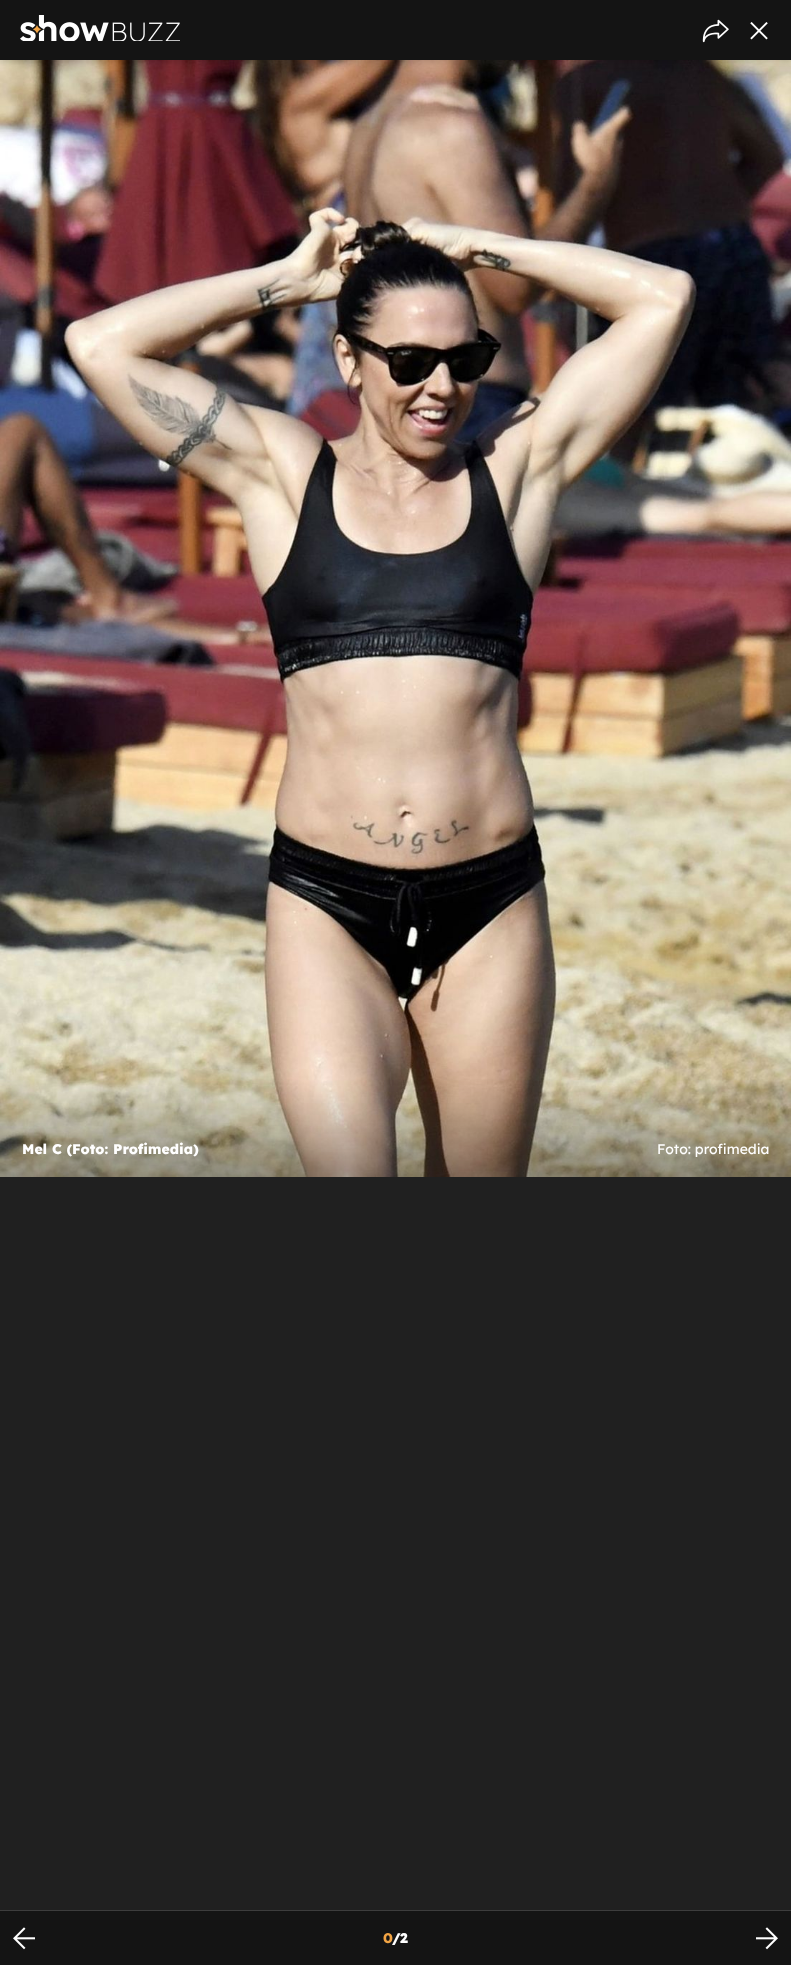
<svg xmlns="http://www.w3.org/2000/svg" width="791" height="1965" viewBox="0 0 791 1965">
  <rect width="100%" height="100%" fill="#202020"/>
  <image x="0" y="60" width="791" height="1117" href="img/4.png"/>
  <path d="M0 2h791v60H0z" fill="#00000026" filter="blur(3.5px)"/>
  <path d="M0 0h791v60H0z" fill="#141414"/>
  <image x="20" y="15" width="160" height="26" href="img/1.png"/>
  <image x="702" y="19" width="27" height="24" href="img/2.png"/>
  <image x="750" y="22" width="18" height="18" href="img/3.png"/>
  <path d="M0 1911h791v54H0z" fill="#141414"/>
  <path d="M0 1910h791v1H0z" fill="#3d3d3d"/>
  <image x="13" y="1927" width="22" height="23" href="img/5.png"/>
  <image x="756" y="1927" width="22" height="23" href="img/6.png"/>
  <text x="22" y="1154" font-family="Lexend" font-size="14" font-weight="800" fill="#fff">Mel C (Foto: Profimedia)</text>
  <text x="657" y="1154" font-family="Lexend" font-size="14" fill="#fff">Foto: profimedia</text>
  <text x="383" y="1943" font-family="Lexend" font-size="14" font-weight="800" fill="#f2a444">0</text>
  <g font-family="Lexend" font-size="14" font-weight="800" fill="#fff">
    <text x="392" y="1943">/</text>
    <text x="400" y="1943">2</text>
  </g>
</svg>
